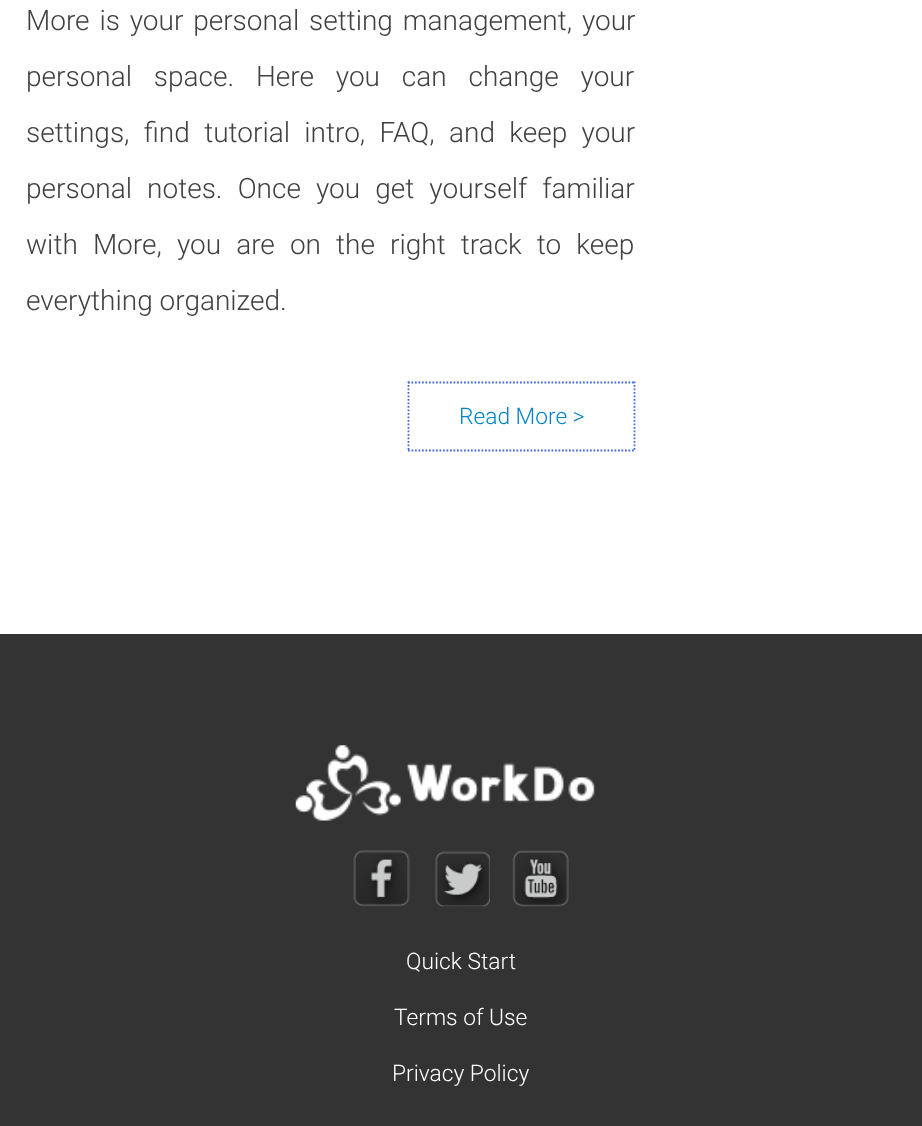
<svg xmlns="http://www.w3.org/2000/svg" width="922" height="1126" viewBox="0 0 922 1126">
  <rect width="100%" height="100%" fill="#fff"/>
  <path d="M408 382.5H635" fill="none" stroke="#4169e1" stroke-width="1.8" stroke-dasharray="1.75 1.75"/>
  <path d="M634.5 381.5V451.5" fill="none" stroke="#4169e1" stroke-width="1.8" stroke-dasharray="1.75 1.75"/>
  <path d="M408 450.5H635" fill="none" stroke="#4169e1" stroke-width="1.8" stroke-dasharray="1.75 1.75"/>
  <path d="M408.5 381.5V451.5" fill="none" stroke="#4169e1" stroke-width="1.8" stroke-dasharray="1.75 1.75"/>
  <path d="M0 634h922v492H0z" fill="#333"/>
  <image x="295" y="745" width="300" height="76" href="img/1.png"/>
  <image x="353" y="850" width="57" height="57" href="img/2.png"/>
  <image x="435" y="851" width="55" height="56" href="img/3.png"/>
  <image x="512" y="850" width="57" height="57" href="img/4.png"/>
  <g font-family="Roboto" font-size="28" font-weight="300" fill="#404040">
    <text x="26" y="30" word-spacing="3">More is your personal setting management, your</text>
    <text x="26" y="86" word-spacing="15">personal space. Here you can change your</text>
    <text x="26" y="142" word-spacing="7.5">settings, find tutorial intro, FAQ, and keep your</text>
    <text x="26" y="198" word-spacing="8.25">personal notes. Once you get yourself familiar</text>
    <text x="26" y="254" word-spacing="8.25">with More, you are on the right track to keep</text>
    <text x="26" y="310">everything organized.</text>
  </g>
  <text x="459" y="424" font-family="Roboto" font-size="22.75" font-weight="300" fill="#0184c5">Read More &gt;</text>
  <g font-family="Roboto" font-size="22.75" font-weight="300" fill="#fff">
    <text x="406" y="969">Quick Start</text>
    <text x="394" y="1025">Terms of Use</text>
    <text x="392" y="1081">Privacy Policy</text>
  </g>
</svg>
